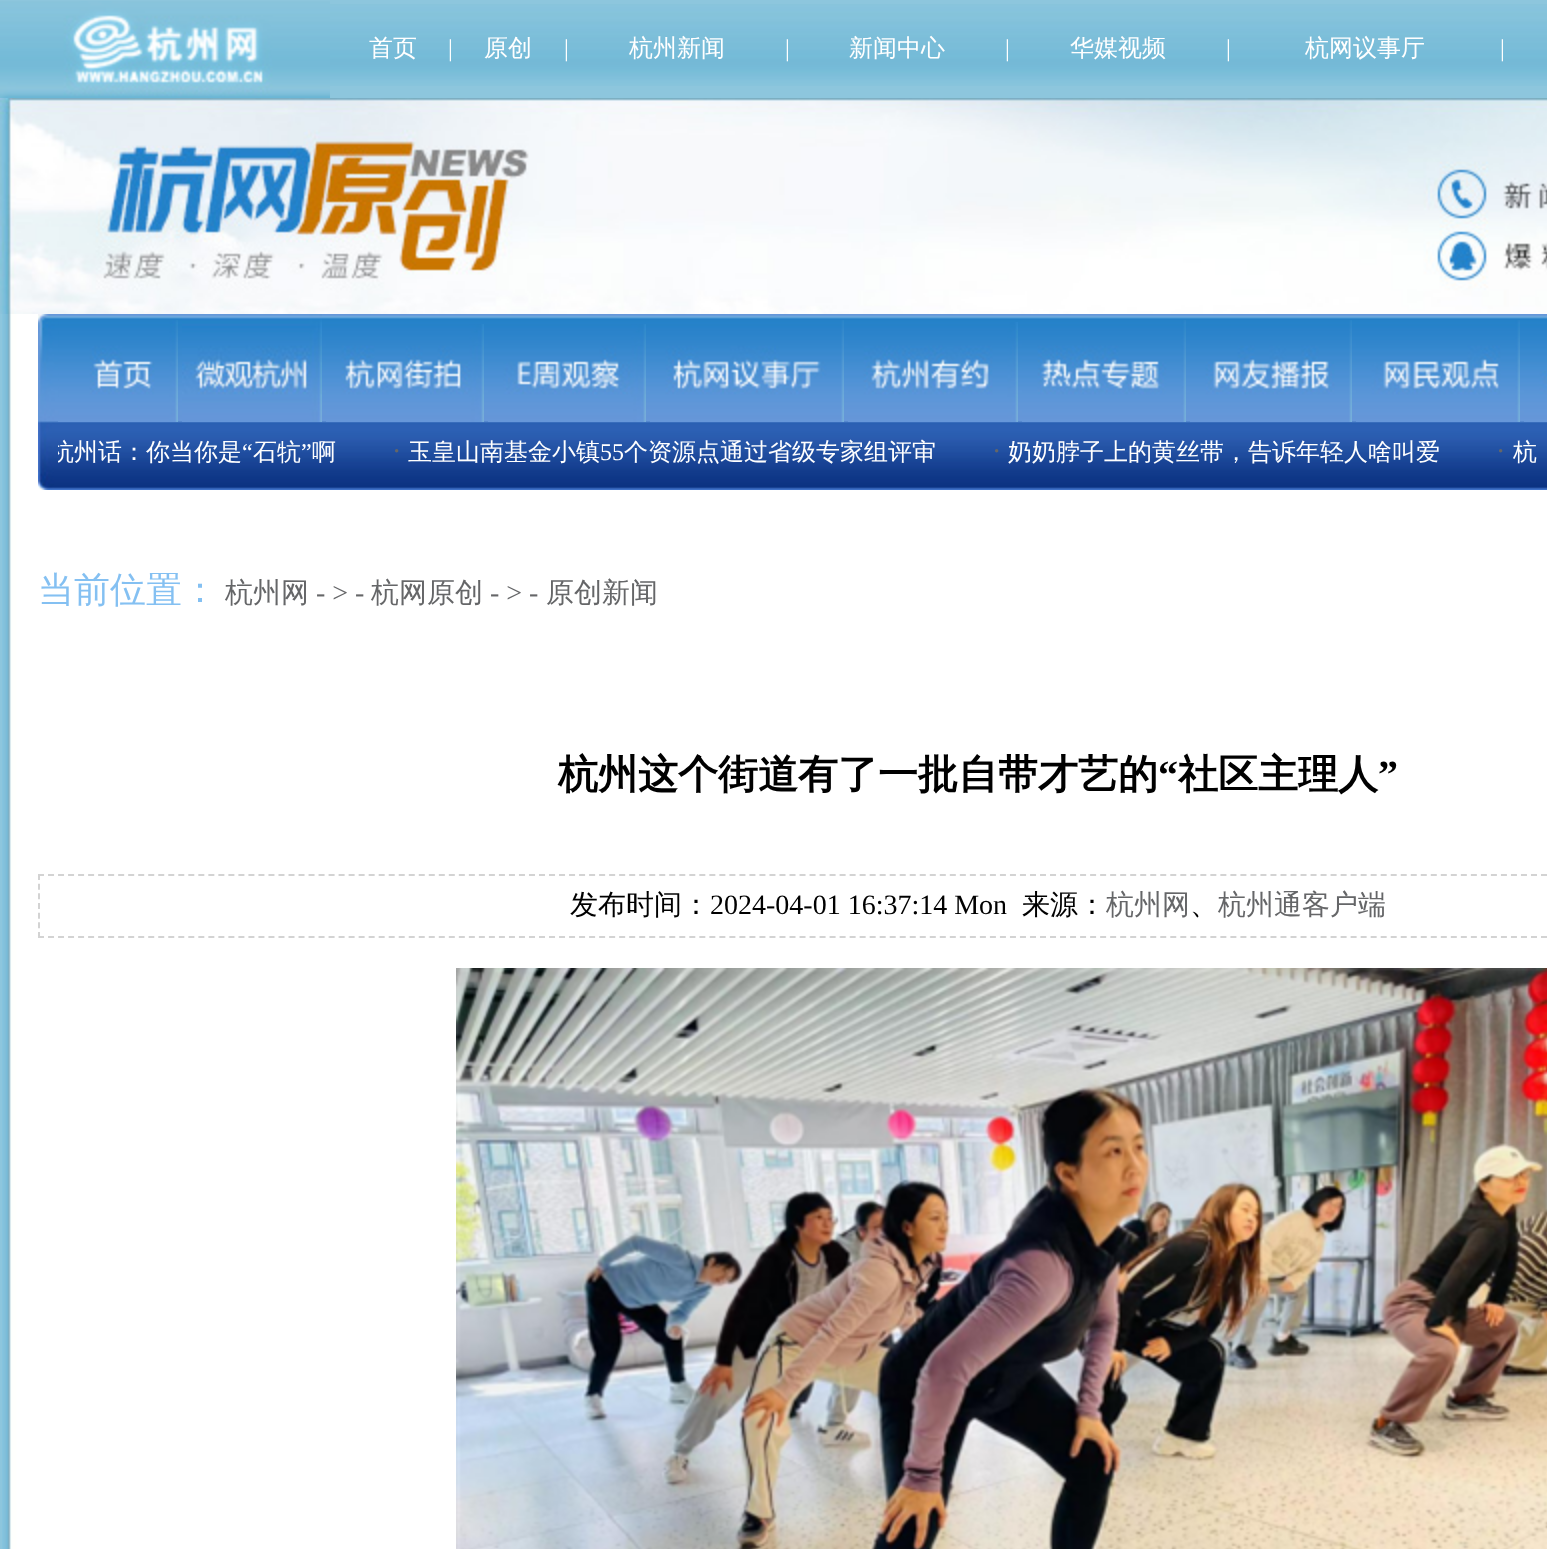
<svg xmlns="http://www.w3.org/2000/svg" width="1547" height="1549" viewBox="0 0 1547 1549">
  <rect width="100%" height="100%" fill="#8dc6dd"/>
  <image x="330" y="4" width="1217" height="82" href="img/1.png"/>
  <image x="0" y="1" width="330" height="97" href="img/2.png"/>
  <image x="0" y="98" width="1547" height="216" href="img/3.png"/>
  <image x="2" y="314" width="1545" height="216" href="img/4.png"/>
  <image x="58" y="314" width="1489" height="176" href="img/5.png"/>
  <image x="58" y="320" width="120" height="102" href="img/7.png"/>
  <image x="182" y="314" width="140" height="108" href="img/8.png"/>
  <image x="326" y="324" width="158" height="98" href="img/9.png"/>
  <image x="488" y="324" width="158" height="98" href="img/10.png"/>
  <image x="650" y="320" width="194" height="102" href="img/11.png"/>
  <image x="848" y="322" width="170" height="100" href="img/12.png"/>
  <image x="1022" y="320" width="164" height="102" href="img/13.png"/>
  <image x="1190" y="320" width="162" height="102" href="img/14.png"/>
  <image x="1356" y="320" width="164" height="102" href="img/15.png"/>
  <image x="1524" y="371" width="23" height="51" href="img/16.png"/>
  <image x="2" y="530" width="1545" height="1019" href="img/17.png"/>
  <path d="M38 875H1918" fill="none" stroke="#d3d3d3" stroke-width="2" stroke-dasharray="6 4.02"/>
  <path d="M38 937H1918" fill="none" stroke="#d3d3d3" stroke-width="2" stroke-dasharray="6 4.02"/>
  <path d="M39 874V938" fill="none" stroke="#d3d3d3" stroke-width="2" stroke-dasharray="6 3.66"/>
  <image x="456" y="968" width="1091" height="581" href="img/18.png"/>
  <text x="369" y="56" font-family="WenQuanYi Zen Hei" font-size="24" font-weight="500" fill="#fff">首页</text>
  <text x="448" y="56" font-family="Liberation Serif" font-size="24" fill="#fff">|</text>
  <text x="484" y="56" font-family="WenQuanYi Zen Hei" font-size="24" font-weight="500" fill="#fff">原创</text>
  <text x="564" y="56" font-family="Liberation Serif" font-size="24" fill="#fff">|</text>
  <text x="629" y="56" font-family="WenQuanYi Zen Hei" font-size="24" font-weight="500" fill="#fff">杭州新闻</text>
  <text x="785" y="56" font-family="Liberation Serif" font-size="24" fill="#fff">|</text>
  <text x="849" y="56" font-family="WenQuanYi Zen Hei" font-size="24" font-weight="500" fill="#fff">新闻中心</text>
  <text x="1005" y="56" font-family="Liberation Serif" font-size="24" fill="#fff">|</text>
  <text x="1070" y="56" font-family="WenQuanYi Zen Hei" font-size="24" font-weight="500" fill="#fff">华媒视频</text>
  <text x="1226" y="56" font-family="Liberation Serif" font-size="24" fill="#fff">|</text>
  <text x="1305" y="56" font-family="WenQuanYi Zen Hei" font-size="24" font-weight="500" fill="#fff">杭网议事厅</text>
  <text x="1500" y="56" font-family="Liberation Serif" font-size="24" fill="#fff">|</text>
  <text x="50" y="460" font-family="WenQuanYi Zen Hei" font-size="24" font-weight="500" fill="#fff">杭州话：你当你是</text>
  <image x="38" y="314" width="20" height="176" href="img/6.png"/>
  <text x="242" y="460" font-family="Liberation Serif" font-size="24" fill="#fff">“</text>
  <text x="253" y="460" font-family="WenQuanYi Zen Hei" font-size="24" font-weight="500" fill="#fff">石牨</text>
  <text x="301" y="460" font-family="Liberation Serif" font-size="24" fill="#fff">”</text>
  <text x="312" y="460" font-family="WenQuanYi Zen Hei" font-size="24" font-weight="500" fill="#fff">啊</text>
  <text x="392" y="460" font-family="Liberation Serif" font-size="28" fill="#656668">·</text>
  <text x="408" y="460" font-family="WenQuanYi Zen Hei" font-size="24" font-weight="500" fill="#fff">玉皇山南基金小镇</text>
  <text x="600" y="460" font-family="Liberation Serif" font-size="24" fill="#fff">55</text>
  <text x="624" y="460" font-family="WenQuanYi Zen Hei" font-size="24" font-weight="500" fill="#fff">个资源点通过省级专家组评审</text>
  <text x="992" y="460" font-family="Liberation Serif" font-size="28" fill="#656668">·</text>
  <text x="1008" y="460" font-family="WenQuanYi Zen Hei" font-size="24" font-weight="500" fill="#fff">奶奶脖子上的黄丝带，告诉年轻人啥叫爱</text>
  <text x="1496" y="460" font-family="Liberation Serif" font-size="28" fill="#656668">·</text>
  <text x="1513" y="460" word-spacing="-1" font-family="WenQuanYi Zen Hei" font-size="24" font-weight="500" fill="#fff">杭</text>
  <text x="38" y="602" font-family="WenQuanYi Zen Hei" font-size="36" font-weight="500" fill="#84c0f2">当前位置：</text>
  <text x="225" y="602" font-family="WenQuanYi Zen Hei" font-size="28" font-weight="500" fill="#656668">杭州网</text>
  <text x="316" y="602" font-family="Liberation Serif" font-size="28" fill="#656668">- &gt; -</text>
  <text x="371" y="602" font-family="WenQuanYi Zen Hei" font-size="28" font-weight="500" fill="#656668">杭网原创</text>
  <text x="490" y="602" font-family="Liberation Serif" font-size="28" fill="#656668">- &gt; -</text>
  <text x="546" y="602" font-family="WenQuanYi Zen Hei" font-size="28" font-weight="500" fill="#656668">原创新闻</text>
  <text x="558" y="788" font-family="WenQuanYi Zen Hei" font-size="40" font-weight="bold" fill="#000">杭州这个街道有了一批自带才艺的</text>
  <text x="1158" y="788" font-family="Liberation Serif" font-size="40" font-weight="bold" fill="#000">“</text>
  <text x="1178" y="788" font-family="WenQuanYi Zen Hei" font-size="40" font-weight="bold" fill="#000">社区主理人</text>
  <text x="1378" y="788" font-family="Liberation Serif" font-size="40" font-weight="bold" fill="#000">”</text>
  <text x="570" y="914" font-family="WenQuanYi Zen Hei" font-size="28" font-weight="500" fill="#000">发布时间：</text>
  <text x="710" y="914" font-family="Liberation Serif" font-size="28" fill="#000">2024-04-01 16:37:14 Mon</text>
  <text x="1022" y="914" font-family="WenQuanYi Zen Hei" font-size="28" font-weight="500" fill="#000">来源：</text>
  <text x="1106" y="914" font-family="WenQuanYi Zen Hei" font-size="28" font-weight="500" fill="#656668">杭州网</text>
  <text x="1190" y="914" font-family="WenQuanYi Zen Hei" font-size="28" font-weight="500" fill="#000">、</text>
  <text x="1218" y="914" font-family="WenQuanYi Zen Hei" font-size="28" font-weight="500" fill="#656668">杭州通客户端</text>
</svg>
